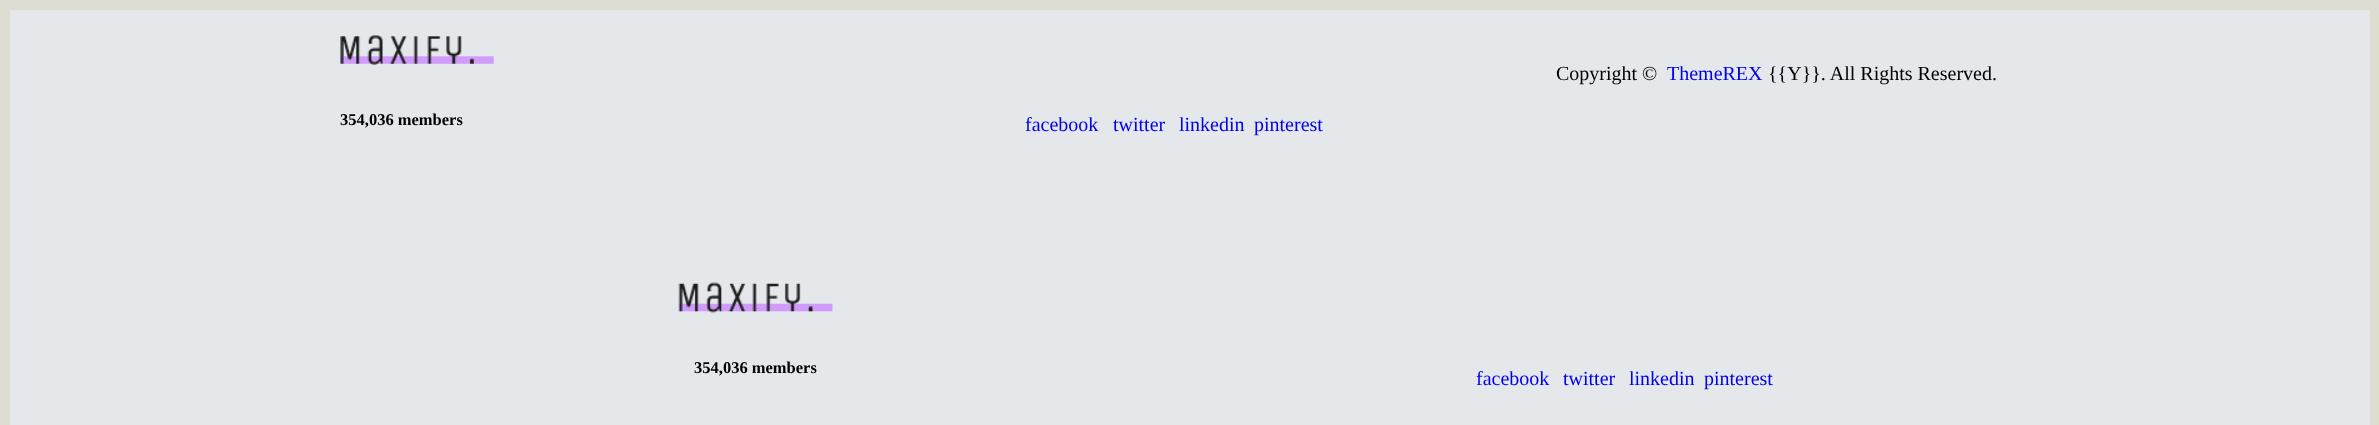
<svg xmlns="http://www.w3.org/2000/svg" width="2379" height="425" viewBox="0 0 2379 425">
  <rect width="100%" height="100%" fill="#ddddd2"/>
  <path d="M10 10h2360v415H10z" fill="#e4e8ea"/>
  <image x="340" y="35" width="154" height="30" href="img/1.png"/>
  <image x="678" y="282" width="155" height="31" href="img/2.png"/>
  <text x="1556" y="80" font-family="Liberation Serif" font-size="20" fill="#000">Copyright ©</text>
  <text x="1667" y="80" font-family="Liberation Serif" font-size="20" fill="#00e">ThemeREX</text>
  <text x="1768" y="80" font-family="Liberation Serif" font-size="20" fill="#000">{{Y}}. All Rights Reserved.</text>
  <text x="340" y="125" font-family="Liberation Serif" font-size="16.5" font-weight="bold" fill="#000">354,036 members</text>
  <g font-family="Liberation Serif" font-size="20" fill="#00e">
    <text x="1025" y="131">facebook</text>
    <text x="1113" y="131">twitter</text>
    <text x="1179" y="131">linkedin</text>
    <text x="1254" y="131">pinterest</text>
  </g>
  <text x="694" y="373" font-family="Liberation Serif" font-size="16.5" font-weight="bold" fill="#000">354,036 members</text>
  <g font-family="Liberation Serif" font-size="20" fill="#00e">
    <text x="1476" y="385">facebook</text>
    <text x="1563" y="385">twitter</text>
    <text x="1629" y="385">linkedin</text>
    <text x="1704" y="385">pinterest</text>
  </g>
</svg>
